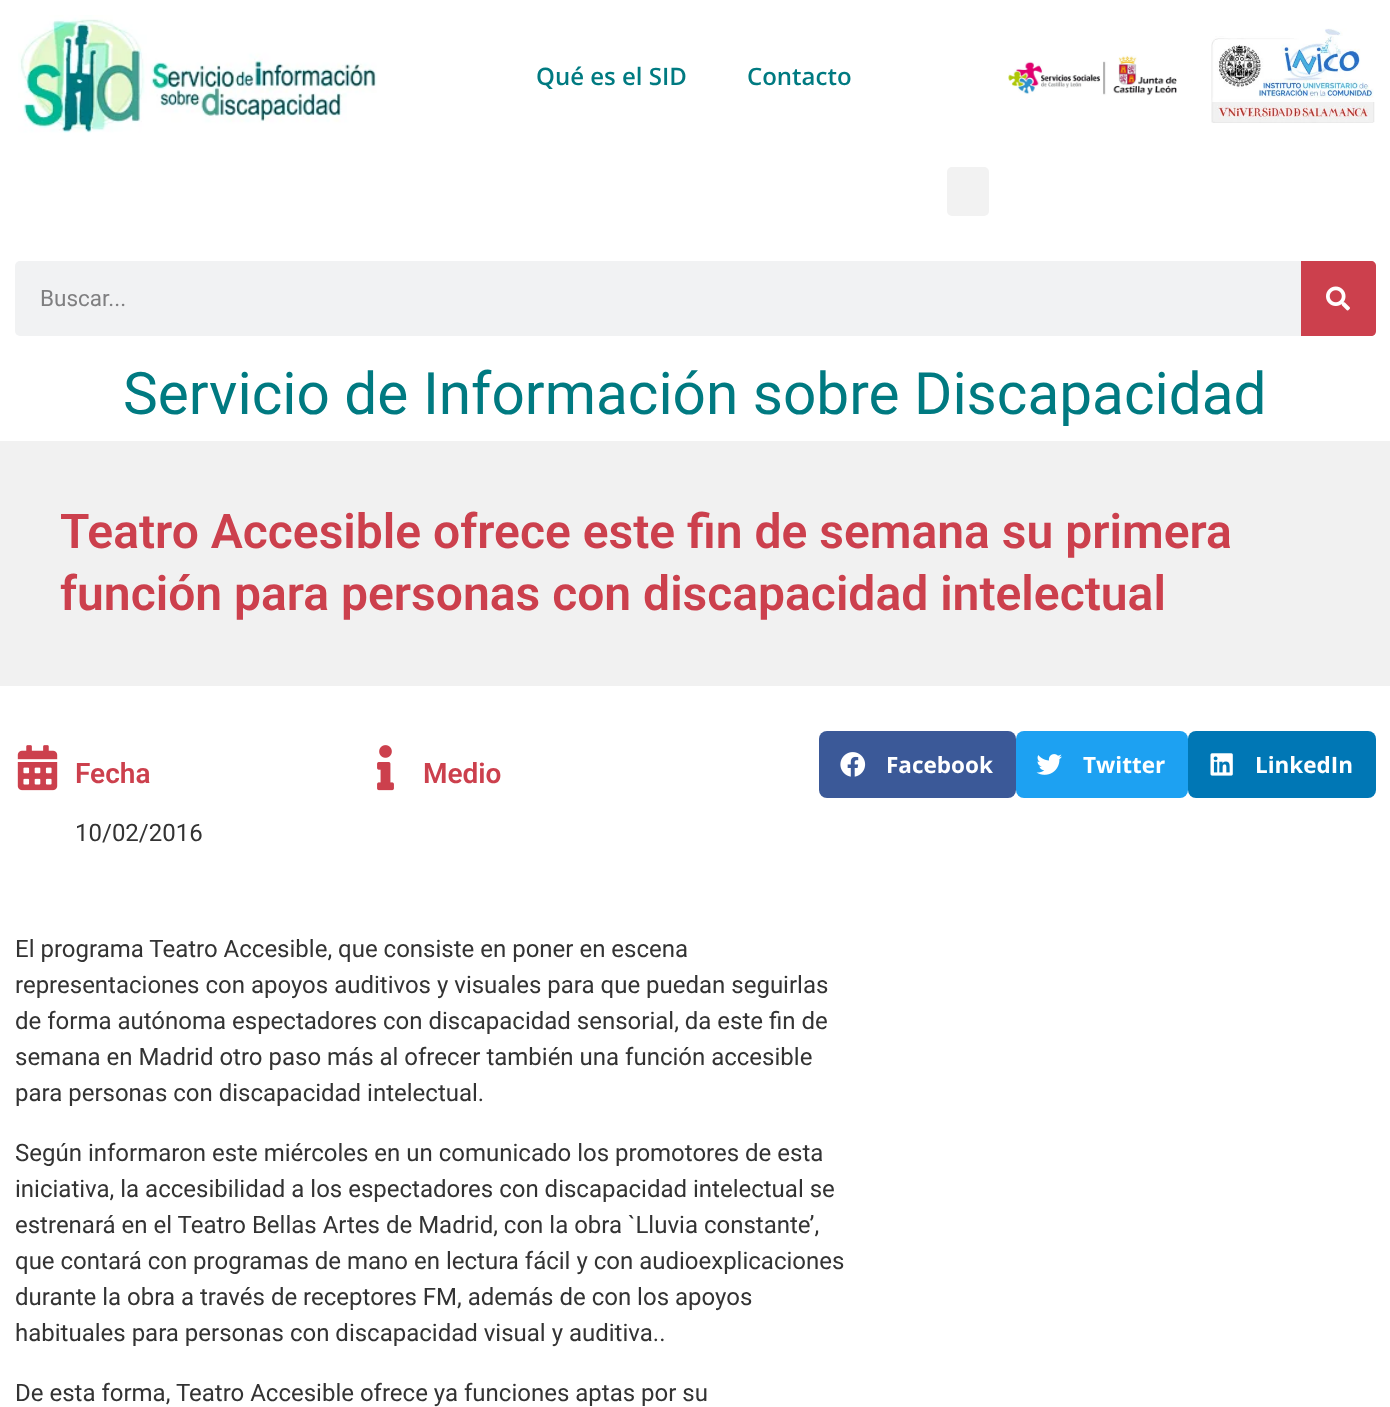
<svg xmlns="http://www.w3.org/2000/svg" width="1390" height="1407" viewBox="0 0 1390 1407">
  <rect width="100%" height="100%" fill="#fff"/>
  <image x="18" y="15" width="359" height="118" href="img/1.png"/>
  <image x="1008" y="55" width="169" height="41" href="img/2.png"/>
  <image x="1211" y="28" width="164" height="95" href="img/3.png"/>
  <rect x="947" y="167" width="42" height="49" rx="5" fill="#f2f2f2"/>
  <rect x="15" y="261" width="1361" height="75" rx="5" fill="#f1f2f3"/>
  <path d="M1301 261H1371C1374 261 1376 263 1376 266V331C1376 334 1374 336 1371 336H1301Z" fill="#cc404d"/>
  <image x="1326" y="286" width="24" height="25" href="img/4.png"/>
  <path d="M0 441h1390v245H0z" fill="#f1f1f1"/>
  <image x="17" y="745" width="41" height="46" href="img/5.png"/>
  <image x="377" y="745" width="17" height="46" href="img/6.png"/>
  <rect x="819" y="731" width="197" height="67" rx="8" fill="#3b5998"/>
  <image x="840" y="752" width="26" height="25" href="img/7.png"/>
  <rect x="1016" y="731" width="172" height="67" rx="8" fill="#1da1f2"/>
  <image x="1036" y="754" width="26" height="21" href="img/8.png"/>
  <rect x="1188" y="731" width="188" height="67" rx="8" fill="#0077b5"/>
  <image x="1210" y="753" width="23" height="23" href="img/9.png"/>
  <g font-family="Open Sans" font-size="24" font-weight="600" fill="#007a81">
    <text x="536" y="85">Qué es el SID</text>
    <text x="747" y="85">Contacto</text>
  </g>
  <text x="40" y="306" font-family="Roboto" font-size="22.5" fill="#7f7f80">Buscar...</text>
  <text x="123" y="414" font-family="Roboto" font-size="58.5" fill="#007a81">Servicio de Información sobre Discapacidad</text>
  <g font-family="Roboto" font-size="48" font-weight="600" fill="#cc404d">
    <text x="60" y="548">Teatro Accesible ofrece este fin de semana su primera</text>
    <text x="60" y="610">función para personas con discapacidad intelectual</text>
  </g>
  <text x="75" y="783" font-family="Roboto" font-size="28" font-weight="600" fill="#cc404d">Fecha</text>
  <text x="75" y="841" font-family="Roboto" font-size="24" fill="#333">10/02/2016</text>
  <text x="423" y="783" font-family="Roboto" font-size="28" font-weight="600" fill="#cc404d">Medio</text>
  <g font-family="Open Sans" font-size="22.5" font-weight="bold" fill="#fff">
    <text x="886" y="773">Facebook</text>
    <text x="1083" y="773">Twitter</text>
    <text x="1255" y="773">LinkedIn</text>
  </g>
  <g font-family="Roboto" font-size="24" fill="#333">
    <text x="15" y="957">El programa Teatro Accesible, que consiste en poner en escena</text>
    <text x="15" y="993">representaciones con apoyos auditivos y visuales para que puedan seguirlas</text>
    <text x="15" y="1029">de forma autónoma espectadores con discapacidad sensorial, da este fin de</text>
    <text x="15" y="1065">semana en Madrid otro paso más al ofrecer también una función accesible</text>
    <text x="15" y="1101">para personas con discapacidad intelectual.</text>
    <text x="15" y="1161">Según informaron este miércoles en un comunicado los promotores de esta</text>
    <text x="15" y="1197">iniciativa, la accesibilidad a los espectadores con discapacidad intelectual se</text>
    <text x="15" y="1233">estrenará en el Teatro Bellas Artes de Madrid, con la obra `Lluvia constante’,</text>
    <text x="15" y="1269">que contará con programas de mano en lectura fácil y con audioexplicaciones</text>
    <text x="15" y="1305">durante la obra a través de receptores FM, además de con los apoyos</text>
    <text x="15" y="1341">habituales para personas con discapacidad visual y auditiva..</text>
    <text x="15" y="1401">De esta forma, Teatro Accesible ofrece ya funciones aptas por su</text>
  </g>
</svg>
